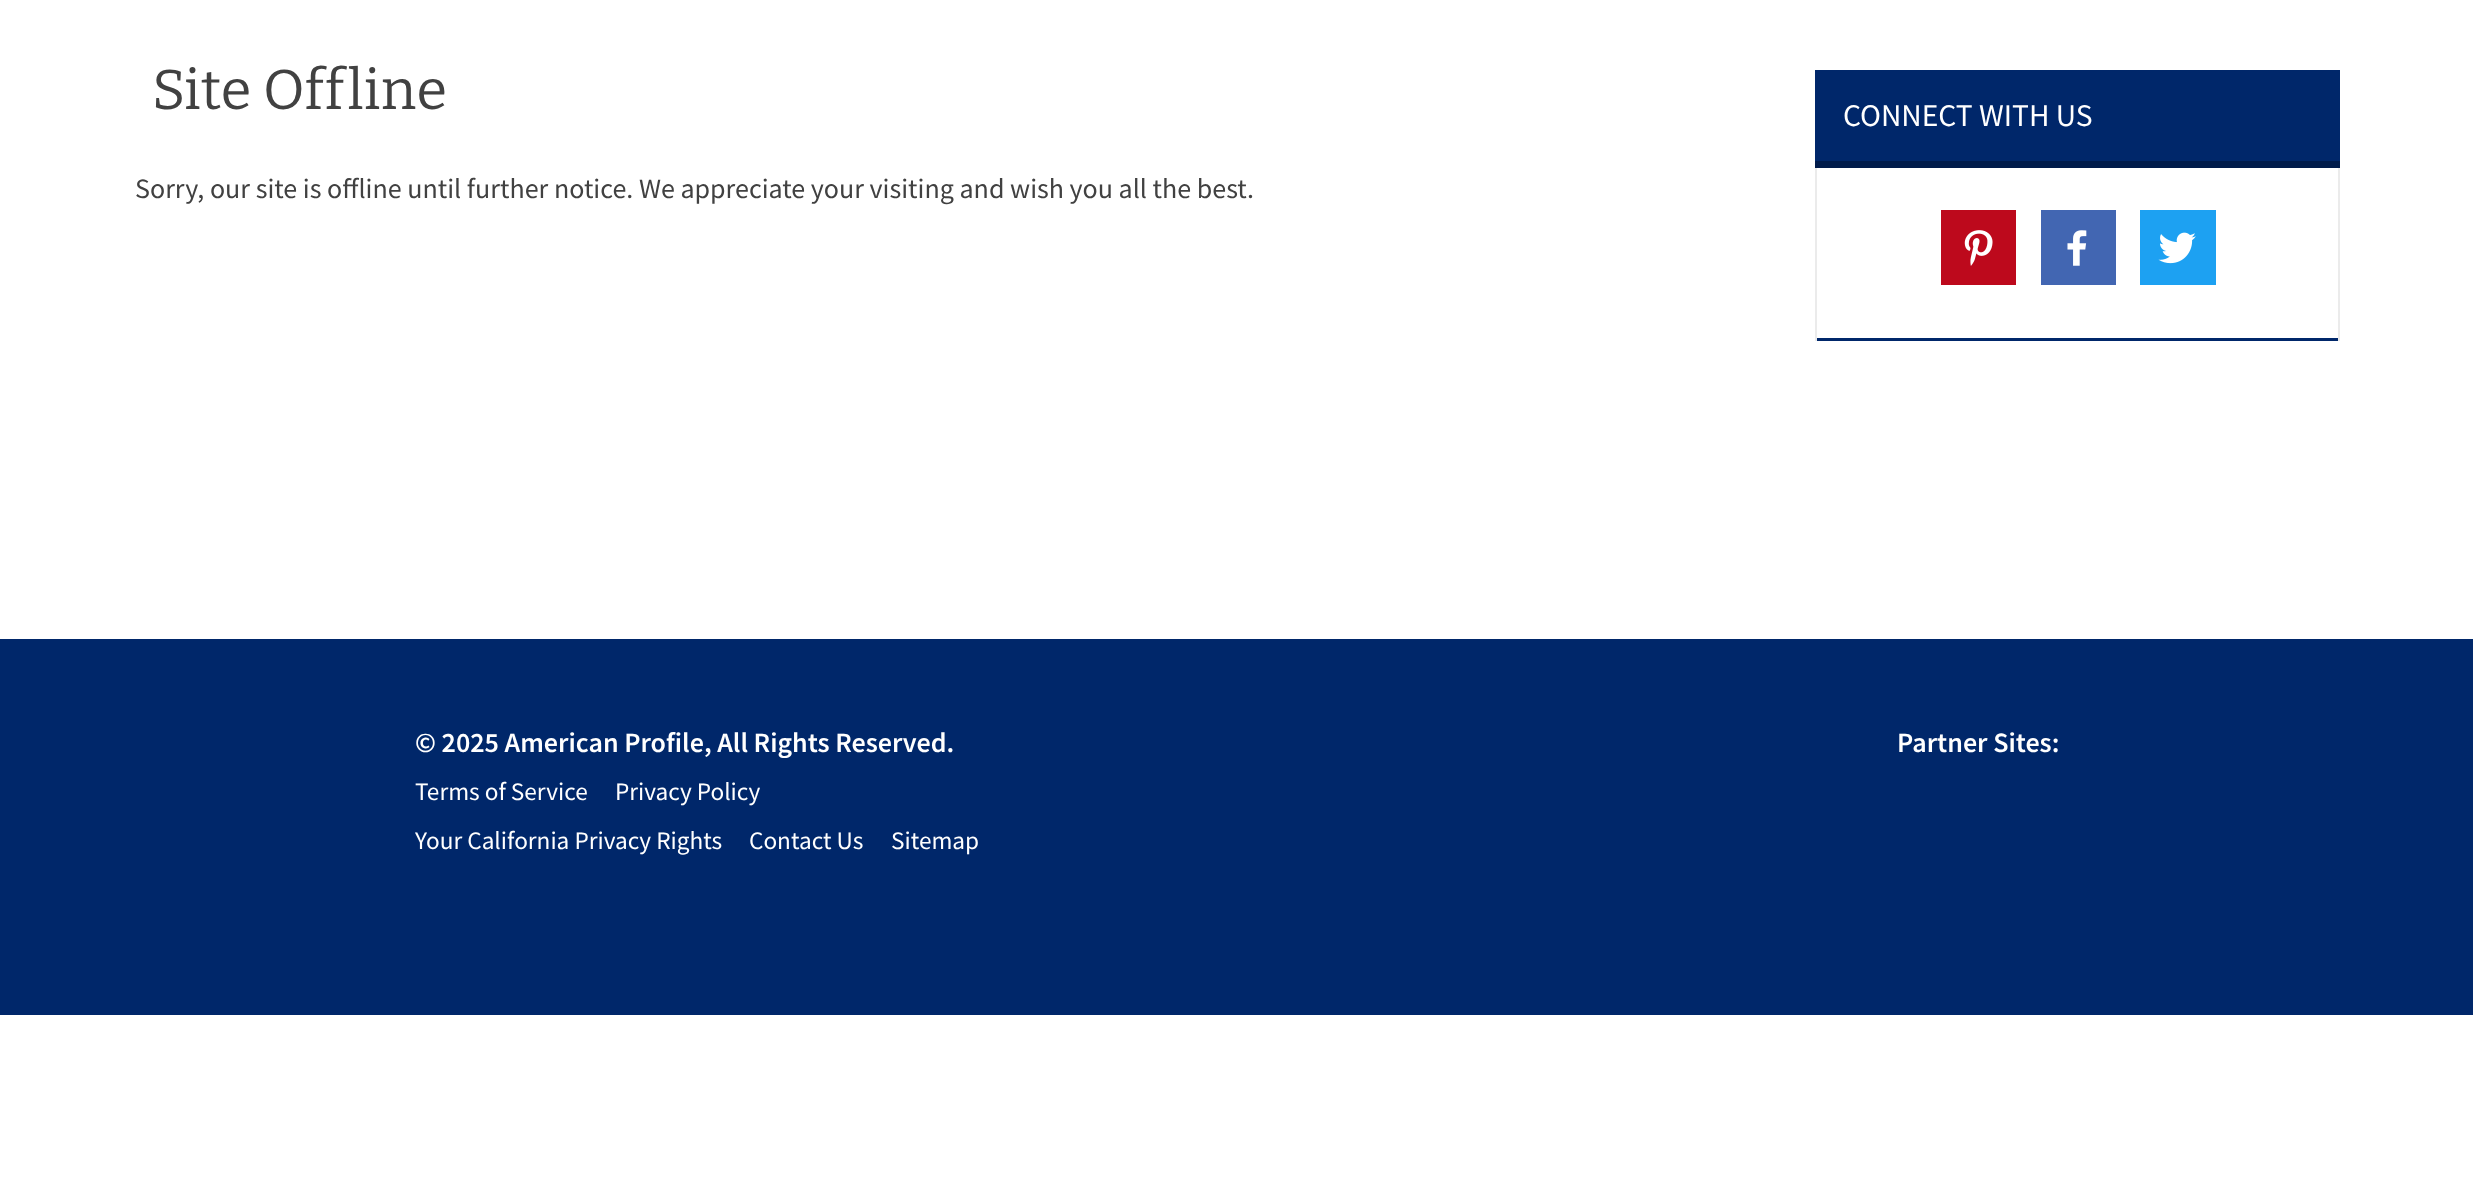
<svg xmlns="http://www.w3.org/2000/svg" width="2473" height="1177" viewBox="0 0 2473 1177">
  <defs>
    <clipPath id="clip1"><path d="M1817 168h521v173H1817z"/></clipPath>
  </defs>
  <rect width="100%" height="100%" fill="#fff"/>
  <path d="M1815 70h525v91H1815z" fill="#00276a"/>
  <path d="M1815 161h525v7H1815z" fill="#001b4a"/>
  <g clip-path="url(#clip1)">
    <path d="M1643-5H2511V514H1643ZM1816 158H2338C2340 158 2342 159 2342 161V334C2342 336 2340 338 2338 338H1816C1815 338 1813 336 1813 334V161C1813 159 1815 158 1816 158Z" fill="#00276a" fill-rule="evenodd"/>
  </g>
  <path d="M2338 168h2v173H2338z" fill="#ebebeb"/>
  <path d="M1815 168h2v173H1815z" fill="#ebebeb"/>
  <path d="M1941 210h75v75H1941z" fill="#bd091c"/>
  <image x="1964" y="230" width="29" height="36" href="img/1.png"/>
  <path d="M2041 210h75v75H2041z" fill="#4266b2"/>
  <image x="2067" y="230" width="20" height="36" href="img/2.png"/>
  <path d="M2140 210h76v75H2140z" fill="#1da1f2"/>
  <image x="2158" y="232" width="38" height="32" href="img/3.png"/>
  <path d="M0 639h2473v376H0z" fill="#00276a"/>
  <text x="152" y="109" font-family="Bitter" font-size="56" letter-spacing="0.25" fill="#414141">Site Offline</text>
  <text x="135" y="198" font-family="Source Sans Pro" font-size="28" fill="#414141">Sorry, our site is offline until further notice. We appreciate your visiting and wish you all the best.</text>
  <text x="1843" y="126" font-family="Source Sans Pro" font-size="31.5" fill="#fff">CONNECT WITH US</text>
  <text x="415" y="752" font-family="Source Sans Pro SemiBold" font-size="28" font-weight="600" fill="#fff">© 2025 American Profile, All Rights Reserved.</text>
  <g font-family="Source Sans Pro" font-size="25.25" fill="#fff">
    <text x="415" y="800">Terms of Service</text>
    <text x="615" y="800">Privacy Policy</text>
    <text x="415" y="849">Your California Privacy Rights</text>
    <text x="749" y="849">Contact Us</text>
    <text x="891" y="849">Sitemap</text>
  </g>
  <text x="1897" y="752" font-family="Source Sans Pro SemiBold" font-size="28" font-weight="600" fill="#fff">Partner Sites:</text>
</svg>
